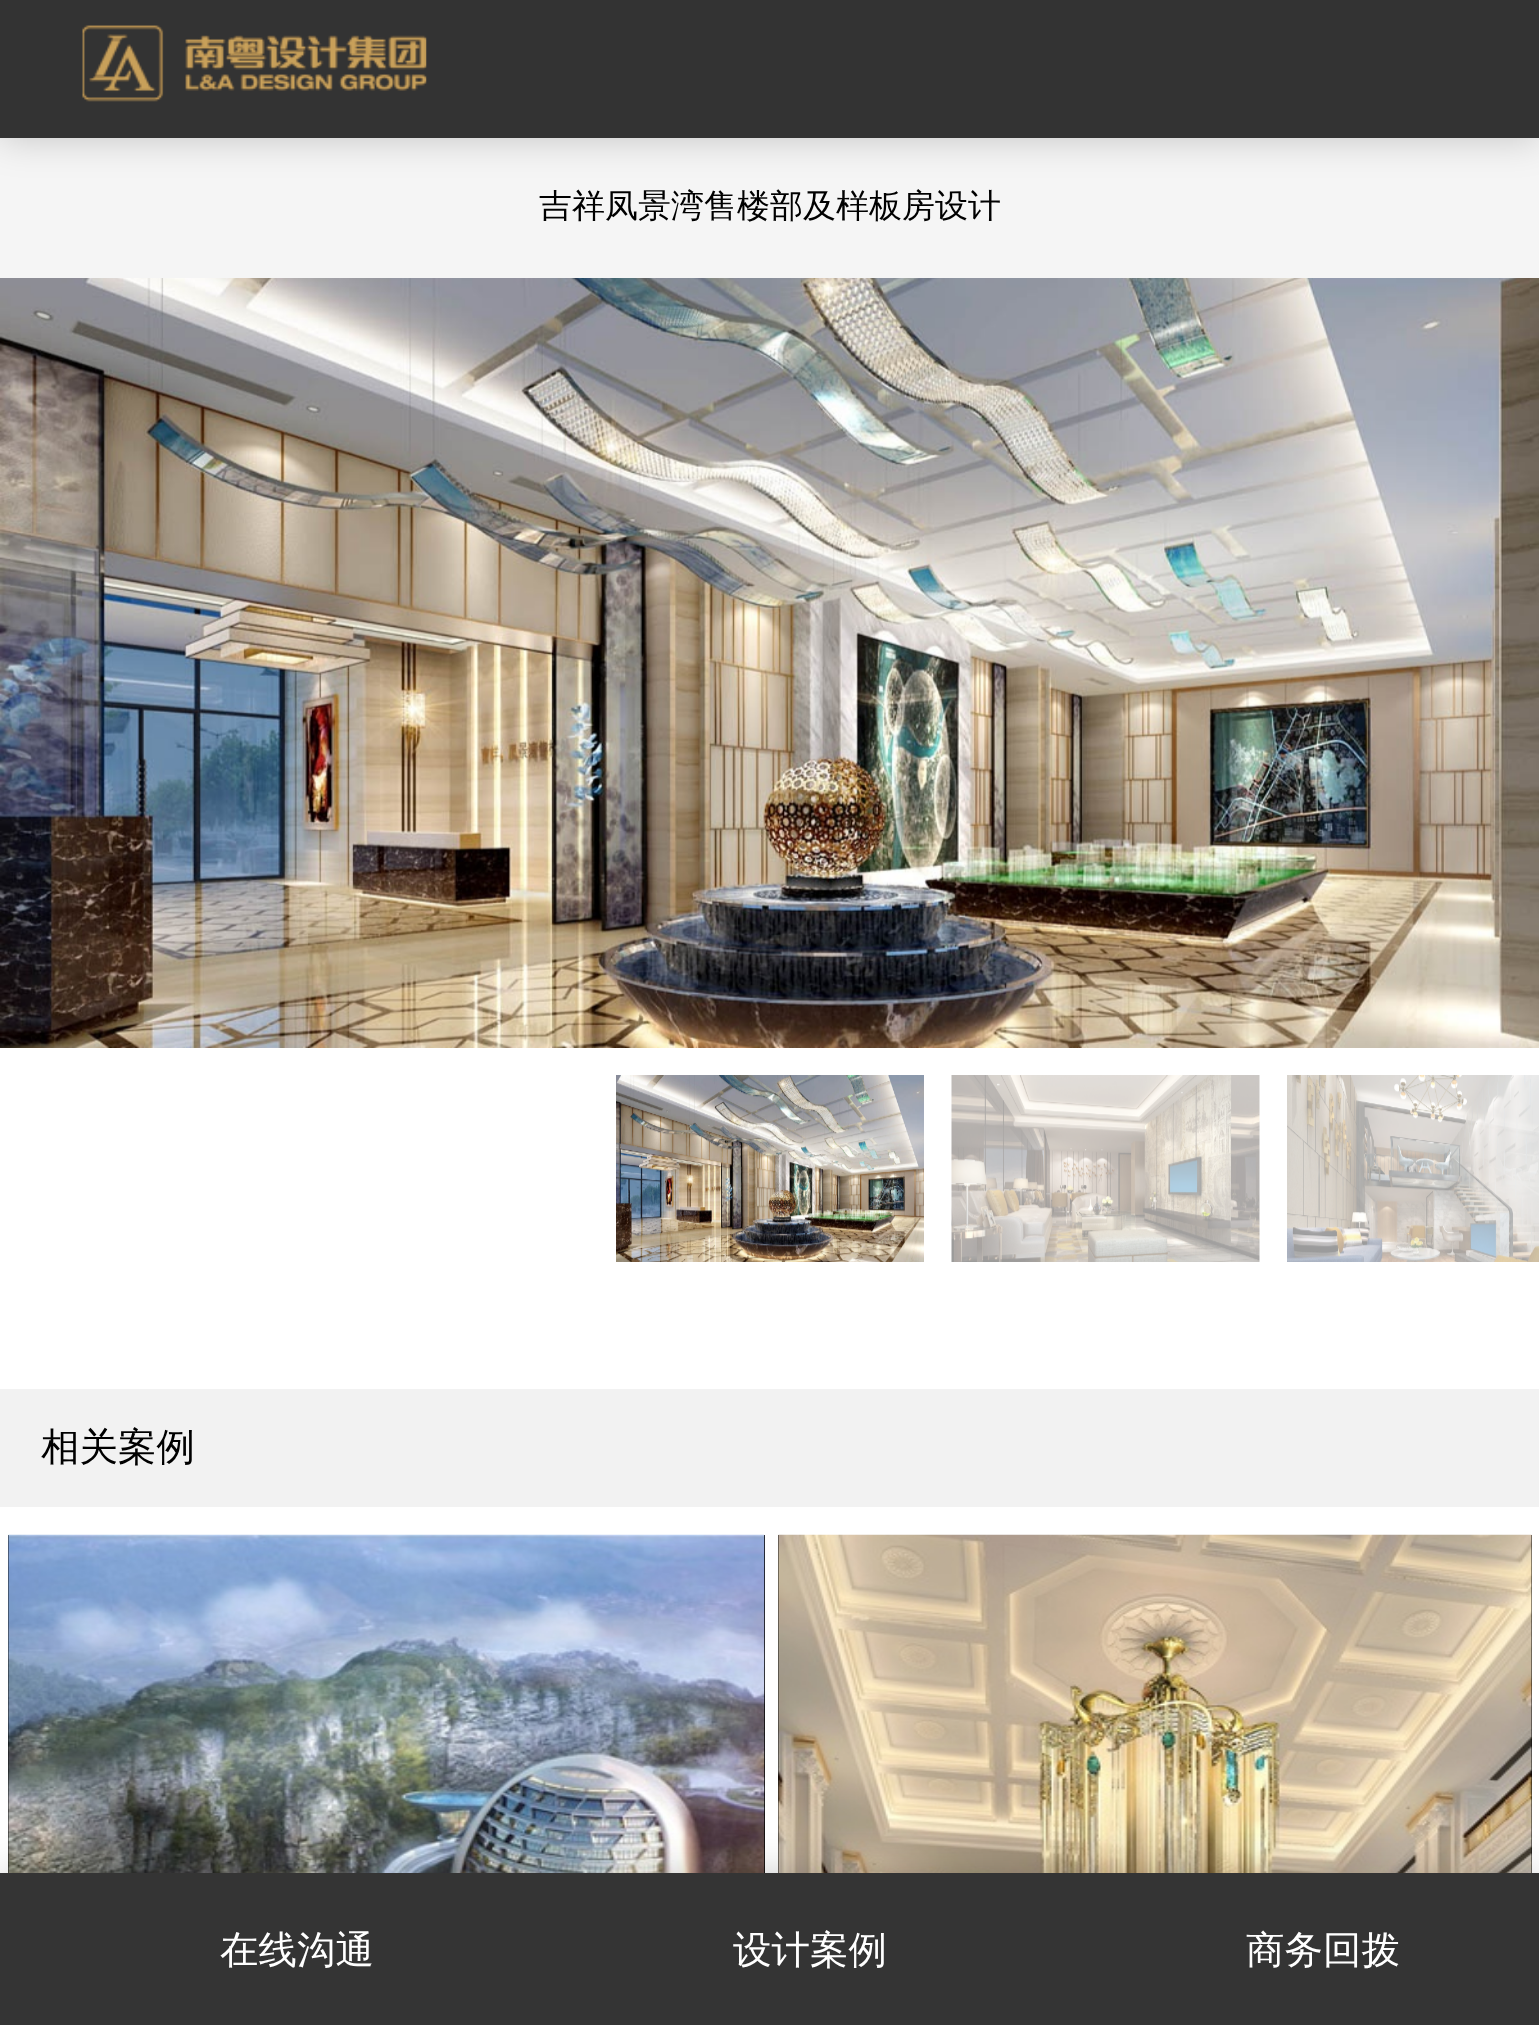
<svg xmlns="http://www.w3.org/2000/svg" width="1539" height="2025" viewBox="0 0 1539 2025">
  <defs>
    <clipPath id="clip1"><path d="M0 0H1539V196H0ZM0 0H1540V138H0Z" clip-rule="evenodd"/></clipPath>
  </defs>
  <rect width="100%" height="100%" fill="#fff"/>
  <path d="M0 138h1539v140H0z" fill="#f5f5f5"/>
  <g clip-path="url(#clip1)">
    <path d="M0 0h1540v138H0z" fill="#00000033" filter="blur(19px)"/>
  </g>
  <path d="M0 0h1539v138H0z" fill="#000000cc"/>
  <image x="82" y="25" width="345" height="77" href="img/1.png"/>
  <image x="0" y="278" width="1539" height="770" href="img/2.png"/>
  <image x="616" y="1075" width="308" height="187" href="img/3.png"/>
  <image x="951" y="1075" width="309" height="187" href="img/4.png"/>
  <image x="1287" y="1075" width="252" height="187" href="img/5.png"/>
  <path d="M0 1389h1539v118H0z" fill="#f2f2f2"/>
  <path d="M8 1535h757v338H8z" fill="#000"/>
  <image x="8" y="1534" width="757" height="339" href="img/6.png"/>
  <path d="M778 1535h754v338H778z" fill="#000"/>
  <image x="778" y="1534" width="754" height="339" href="img/7.png"/>
  <path d="M0 1873h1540v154H0z" fill="#00000033" filter="blur(19px)"/>
  <path d="M0 1873h1539v152H0z" fill="#343434"/>
  <text x="539" y="217" font-family="WenQuanYi Zen Hei" font-size="33" font-weight="500" fill="#000">吉祥凤景湾售楼部及样板房设计</text>
  <text x="41" y="1460" font-family="WenQuanYi Zen Hei" font-size="38.5" font-weight="500" fill="#000">相关案例</text>
  <g font-family="WenQuanYi Zen Hei" font-size="38.5" font-weight="500" fill="#fff">
    <text x="220" y="1963">在线沟通</text>
    <text x="733" y="1963">设计案例</text>
    <text x="1246" y="1963">商务回拨</text>
  </g>
</svg>
